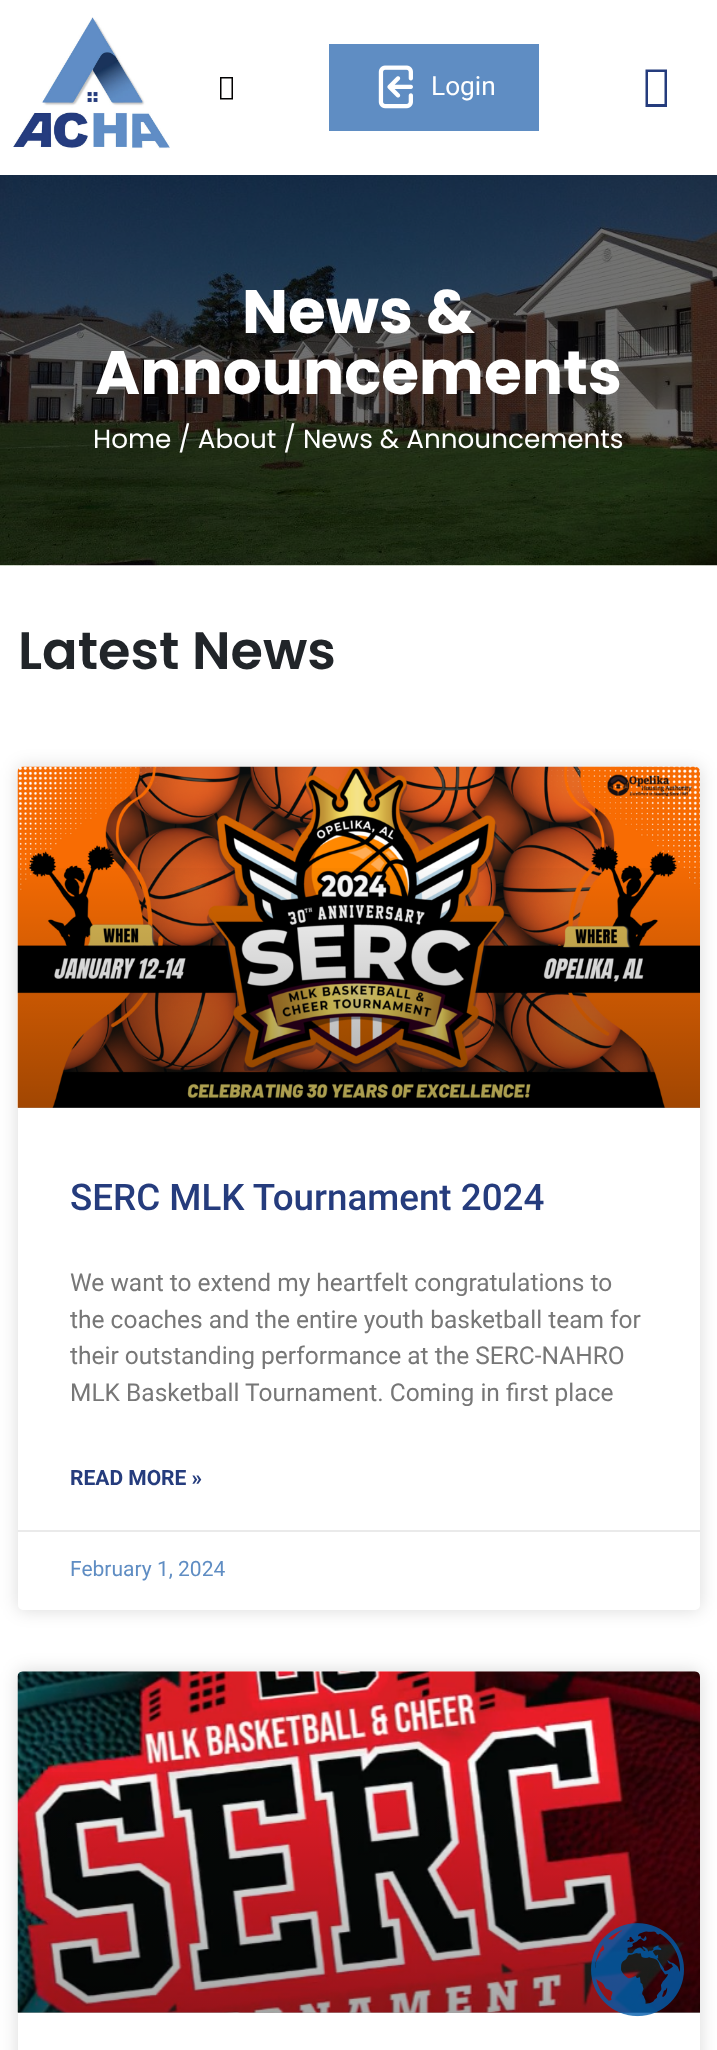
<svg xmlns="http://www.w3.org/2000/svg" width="717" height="2050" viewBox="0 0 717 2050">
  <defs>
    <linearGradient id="g1" gradientUnits="userSpaceOnUse" x1="359" y1="1108" x2="359" y2="767"><stop offset="0" stop-color="#000" stop-opacity="0.35"/><stop offset="0.75" stop-color="#000" stop-opacity="0"/></linearGradient>
    <linearGradient id="g2" gradientUnits="userSpaceOnUse" x1="359" y1="2013" x2="359" y2="1671"><stop offset="0" stop-color="#000" stop-opacity="0.35"/><stop offset="0.75" stop-color="#000" stop-opacity="0"/></linearGradient>
  </defs>
  <rect width="100%" height="100%" fill="#fff"/>
  <image x="13" y="17" width="157" height="132" href="img/1.png"/>
  <path d="M220 99.5V77H233V99.5ZM221.5 98H231.5V78.5H221.5Z" fill="#020101"/>
  <path d="M329 44h210v87H329z" fill="#5f8dc3"/>
  <image x="378" y="65" width="35" height="44" href="img/2.png"/>
  <path d="M645.5 107V69.5H667V107ZM648 104H664.5V72H648Z" fill="#253c7d"/>
  <image x="0" y="175" width="717" height="391" href="img/3.png"/>
  <rect x="18" y="767" width="682" height="843" rx="5" fill="#00000026" filter="blur(9px)"/>
  <rect x="18" y="767" width="682" height="843" rx="5" fill="#fff"/>
  <image x="17" y="766" width="683" height="342" href="img/4.png"/>
  <path d="M18 868h682v240H18z" fill="url(#g1)"/>
  <path d="M18 1530h682v2H18z" fill="#eaeaea"/>
  <rect x="18" y="1671" width="682" height="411" rx="5" fill="#00000026" filter="blur(9px)"/>
  <rect x="18" y="1671" width="682" height="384" rx="5" fill="#fff"/>
  <image x="17" y="1671" width="683" height="342" href="img/5.png"/>
  <path d="M18 1772h682v241H18z" fill="url(#g2)"/>
  <image x="591" y="1923" width="93" height="94" href="img/6.png"/>
  <text x="431" y="95" font-family="Roboto" font-size="26.25" fill="#fff">Login</text>
  <g font-family="Poppins" font-size="61.25" font-weight="bold" fill="#fff">
    <text x="242" y="333">News &amp;</text>
    <text x="95" y="394">Announcements</text>
  </g>
  <text x="93" y="448" font-family="Poppins" font-size="26.25" fill="#fff">Home / About / News &amp; Announcements</text>
  <text x="18" y="669" font-family="Poppins" font-size="52.5" font-weight="600" fill="#212529">Latest News</text>
  <text x="70" y="1210" font-family="Roboto" font-size="36.75" font-weight="500" fill="#253c7d">SERC MLK Tournament 2024</text>
  <g font-family="Roboto" font-size="24.5" fill="#777">
    <text x="70" y="1291">We want to extend my heartfelt congratulations to</text>
    <text x="70" y="1328">the coaches and the entire youth basketball team for</text>
    <text x="70" y="1364">their outstanding performance at the SERC-NAHRO</text>
    <text x="70" y="1401">MLK Basketball Tournament. Coming in first place</text>
  </g>
  <text x="70" y="1485" font-family="Roboto" font-size="21" font-weight="bold" fill="#253c7d">READ MORE »</text>
  <text x="70" y="1576" font-family="Roboto" font-size="21" fill="#5f8dc3">February 1, 2024</text>
</svg>
